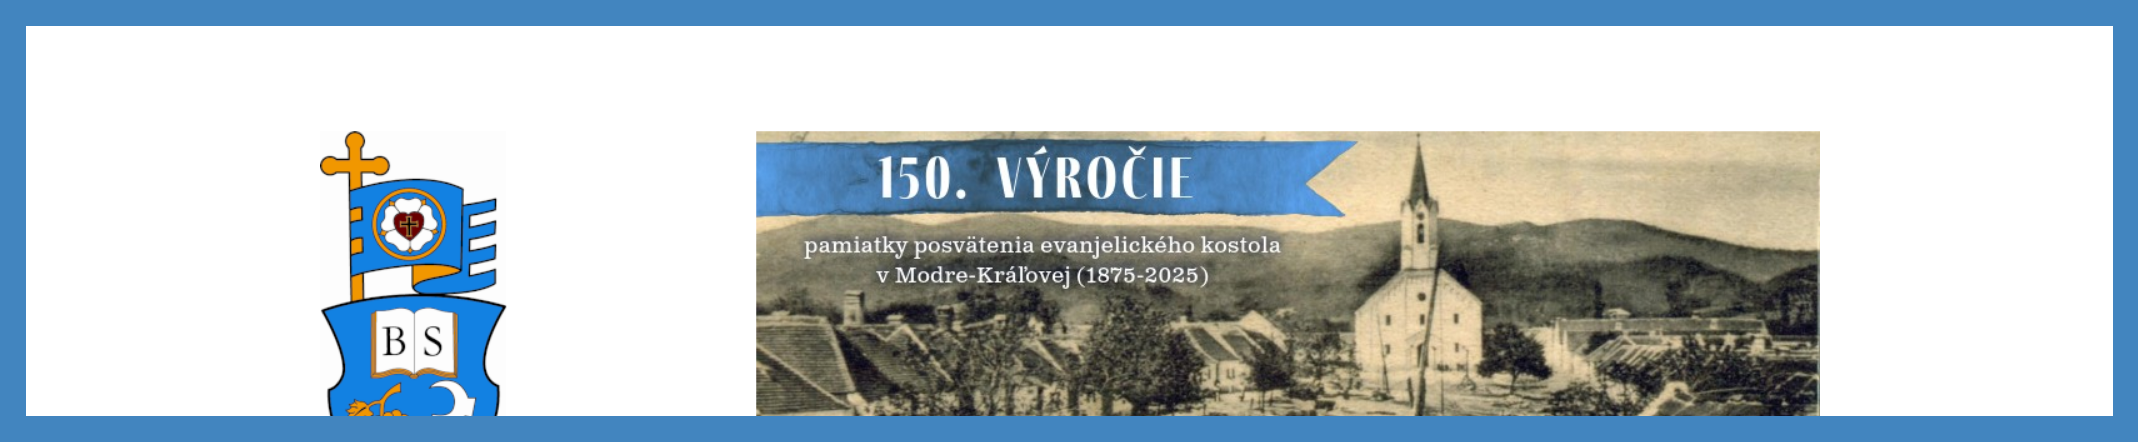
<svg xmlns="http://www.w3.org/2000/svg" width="2138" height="442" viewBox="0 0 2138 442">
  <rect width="100%" height="100%" fill="#4285bf"/>
  <path d="M26 26h2087v390H26z" fill="#fff"/>
  <image x="320" y="131" width="187" height="285" href="img/1.png"/>
  <image x="756" y="131" width="1064" height="285" href="img/2.png"/>
</svg>
